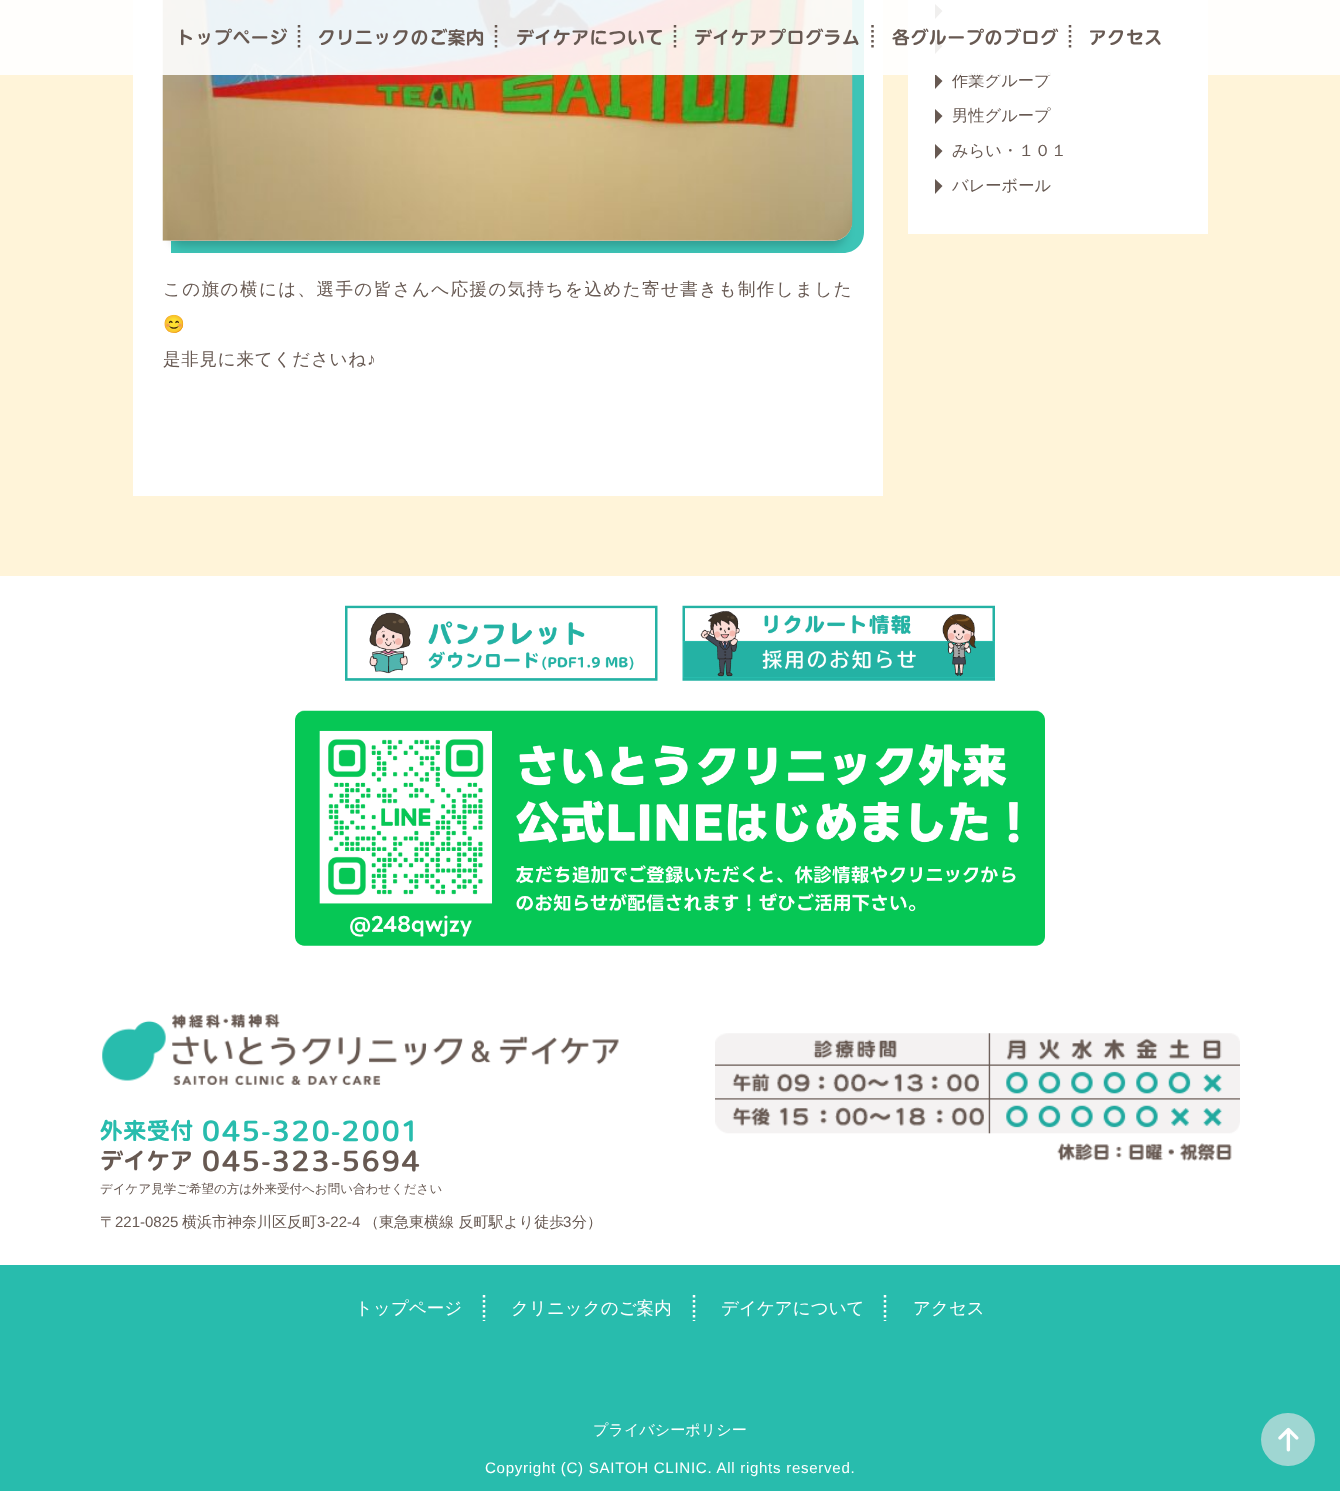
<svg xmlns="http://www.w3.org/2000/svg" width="1340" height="1491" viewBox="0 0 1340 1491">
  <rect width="100%" height="100%" fill="#fff"/>
  <path d="M0 0h1340v576H0z" fill="#fff4d9"/>
  <path d="M908 0h300v234H908z" fill="#fff"/>
  <path d="M935 19V4L942.5 11ZM935 54V39L942.5 46Z" fill="#675952"/>
  <path d="M935 89V74L942.5 81Z" fill="#675952"/>
  <path d="M935 124V109L942.5 116Z" fill="#675952"/>
  <path d="M935 159V144L942.5 151Z" fill="#675952"/>
  <path d="M935 194V179L942.5 186Z" fill="#675952"/>
  <path d="M133 0h750v496H133z" fill="#fff"/>
  <path d="M171 241V253H843C855 253 864 244 864 232V-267H852V221C852 232 844 241 832 241Z" fill="#3dc4b6"/>
  <rect x="170" y="-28" width="675" height="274" rx="13" fill="#00000033" filter="blur(5px)"/>
  <image x="162" y="0" width="691" height="241" href="img/1.png"/>
  <image x="345" y="605" width="313" height="76" href="img/2.png"/>
  <image x="682" y="605" width="313" height="76" href="img/3.png"/>
  <image x="295" y="710" width="750" height="236" href="img/4.png"/>
  <image x="715" y="1033" width="525" height="128" href="img/5.png"/>
  <image x="102" y="1014" width="517" height="71" href="img/6.png"/>
  <path d="M0 1265h1340v226H0z" fill="#28bcad"/>
  <path d="M484 1295V1321" fill="none" stroke="#fff" stroke-width="2.5" stroke-dasharray="2.5 2.5"/>
  <path d="M694 1295V1321" fill="none" stroke="#fff" stroke-width="2.5" stroke-dasharray="2.5 2.5"/>
  <path d="M885 1295V1321" fill="none" stroke="#fff" stroke-width="2.5" stroke-dasharray="2.5 2.5"/>
  <rect x="1261" y="1413" width="54" height="53" rx="26.5" fill="#9fd6d2"/>
  <image x="1278" y="1427" width="21" height="25" href="img/7.png"/>
  <text x="952" y="86" font-family="WenQuanYi Zen Hei" font-size="16.25" font-weight="500" fill="#675952">作業グループ</text>
  <path d="M0 0h1340v75H0z" fill="#ffffffe6"/>
  <text x="1089" y="44" font-family="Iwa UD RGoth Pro" font-size="17.55" font-weight="bold" letter-spacing="1" fill="#675952">アクセス</text>
  <path d="M1070 25V50" fill="none" stroke="#675952" stroke-width="2.5" stroke-dasharray="2.5 2.5"/>
  <text x="892" y="44" font-family="Iwa UD RGoth Pro" font-size="17.55" font-weight="bold" letter-spacing="1" fill="#675952">各グループのブログ</text>
  <path d="M872.5 25V50" fill="none" stroke="#675952" stroke-width="2.5" stroke-dasharray="2.5 2.5"/>
  <text x="694" y="44" font-family="Iwa UD RGoth Pro" font-size="17.55" font-weight="bold" letter-spacing="1" fill="#675952">デイケアプログラム</text>
  <path d="M675 25V50" fill="none" stroke="#675952" stroke-width="2.5" stroke-dasharray="2.5 2.5"/>
  <text x="516" y="44" font-family="Iwa UD RGoth Pro" font-size="17.55" font-weight="bold" letter-spacing="1" fill="#675952">デイケアについて</text>
  <path d="M496 25V50" fill="none" stroke="#675952" stroke-width="2.5" stroke-dasharray="2.5 2.5"/>
  <text x="318" y="44" font-family="Iwa UD RGoth Pro" font-size="17.55" font-weight="bold" letter-spacing="1" fill="#675952">クリニックのご案内</text>
  <path d="M299 25V50" fill="none" stroke="#675952" stroke-width="2.5" stroke-dasharray="2.5 2.5"/>
  <text x="177" y="44" font-family="Iwa UD RGoth Pro" font-size="17.55" font-weight="bold" letter-spacing="1" fill="#675952">トップページ</text>
  <g font-family="WenQuanYi Zen Hei" font-size="16.25" font-weight="500" fill="#675952">
    <text x="952" y="121">男性グループ</text>
    <text x="952" y="156">みらい・１０１</text>
    <text x="952" y="191">バレーボール</text>
  </g>
  <text x="163" y="295" font-family="WenQuanYi Zen Hei" font-size="17.55" font-weight="500" letter-spacing="1.4" fill="#675952">この旗の横には、選手の皆さんへ応援の気持ちを込めた寄せ書きも制作しました</text>
  <text x="163" y="330" font-family="Noto Color Emoji" font-size="17.55" letter-spacing="0.75" fill="#675952">😊</text>
  <text x="163" y="365" font-family="WenQuanYi Zen Hei" font-size="17.55" font-weight="500" letter-spacing="0.75" fill="#675952">是非見に来てくださいね</text>
  <text x="367" y="365" font-family="Liberation Sans" font-size="17.55" letter-spacing="0.75" fill="#675952">♪</text>
  <text x="100" y="1139" font-family="Iwa UD RGoth Pro" font-size="22.5" font-weight="bold" letter-spacing="1" fill="#28bcad">外来受付</text>
  <text x="202" y="1140" font-family="Iwa UD RGoth Pro" font-size="25.25" font-weight="bold" letter-spacing="2" fill="#28bcad">045-320-2001</text>
  <text x="100" y="1169" font-family="Iwa UD RGoth Pro" font-size="22.5" font-weight="bold" letter-spacing="1" fill="#675952">デイケア</text>
  <text x="202" y="1170" font-family="Iwa UD RGoth Pro" font-size="25.25" font-weight="bold" letter-spacing="2" fill="#675952">045-323-5694</text>
  <text x="100" y="1193" font-family="WenQuanYi Zen Hei" font-size="12.5" font-weight="500" fill="#675952">デイケア見学ご希望の方は外来受付へお問い合わせください</text>
  <text x="100" y="1227" font-family="WenQuanYi Zen Hei" font-size="15" font-weight="500" fill="#675952">〒</text>
  <text x="115" y="1227" font-family="Liberation Sans" font-size="15" fill="#675952">221-0825</text>
  <text x="182" y="1227" font-family="WenQuanYi Zen Hei" font-size="15" font-weight="500" fill="#675952">横浜市神奈川区反町</text>
  <text x="317" y="1227" font-family="Liberation Sans" font-size="15" fill="#675952">3-22-4</text>
  <text x="364" y="1227" font-family="WenQuanYi Zen Hei" font-size="15" font-weight="500" fill="#675952">（東急東横線 反町駅より徒歩</text>
  <text x="563" y="1227" font-family="Liberation Sans" font-size="15" fill="#675952">3</text>
  <text x="572" y="1227" font-family="WenQuanYi Zen Hei" font-size="15" font-weight="500" fill="#675952">分）</text>
  <g font-family="WenQuanYi Zen Hei" font-size="17.55" font-weight="500" fill="#fff">
    <text x="355" y="1314">トップページ</text>
    <text x="511" y="1314">クリニックのご案内</text>
    <text x="721" y="1314">デイケアについて</text>
    <text x="913" y="1314">アクセス</text>
  </g>
  <text x="593" y="1435" font-family="WenQuanYi Zen Hei" font-size="15.1" font-weight="500" fill="#fff">プライバシーポリシー</text>
  <text x="485" y="1473" font-family="Liberation Sans" font-size="15.1" letter-spacing="0.7" fill="#fff">Copyright (C) SAITOH CLINIC. All rights reserved.</text>
</svg>
